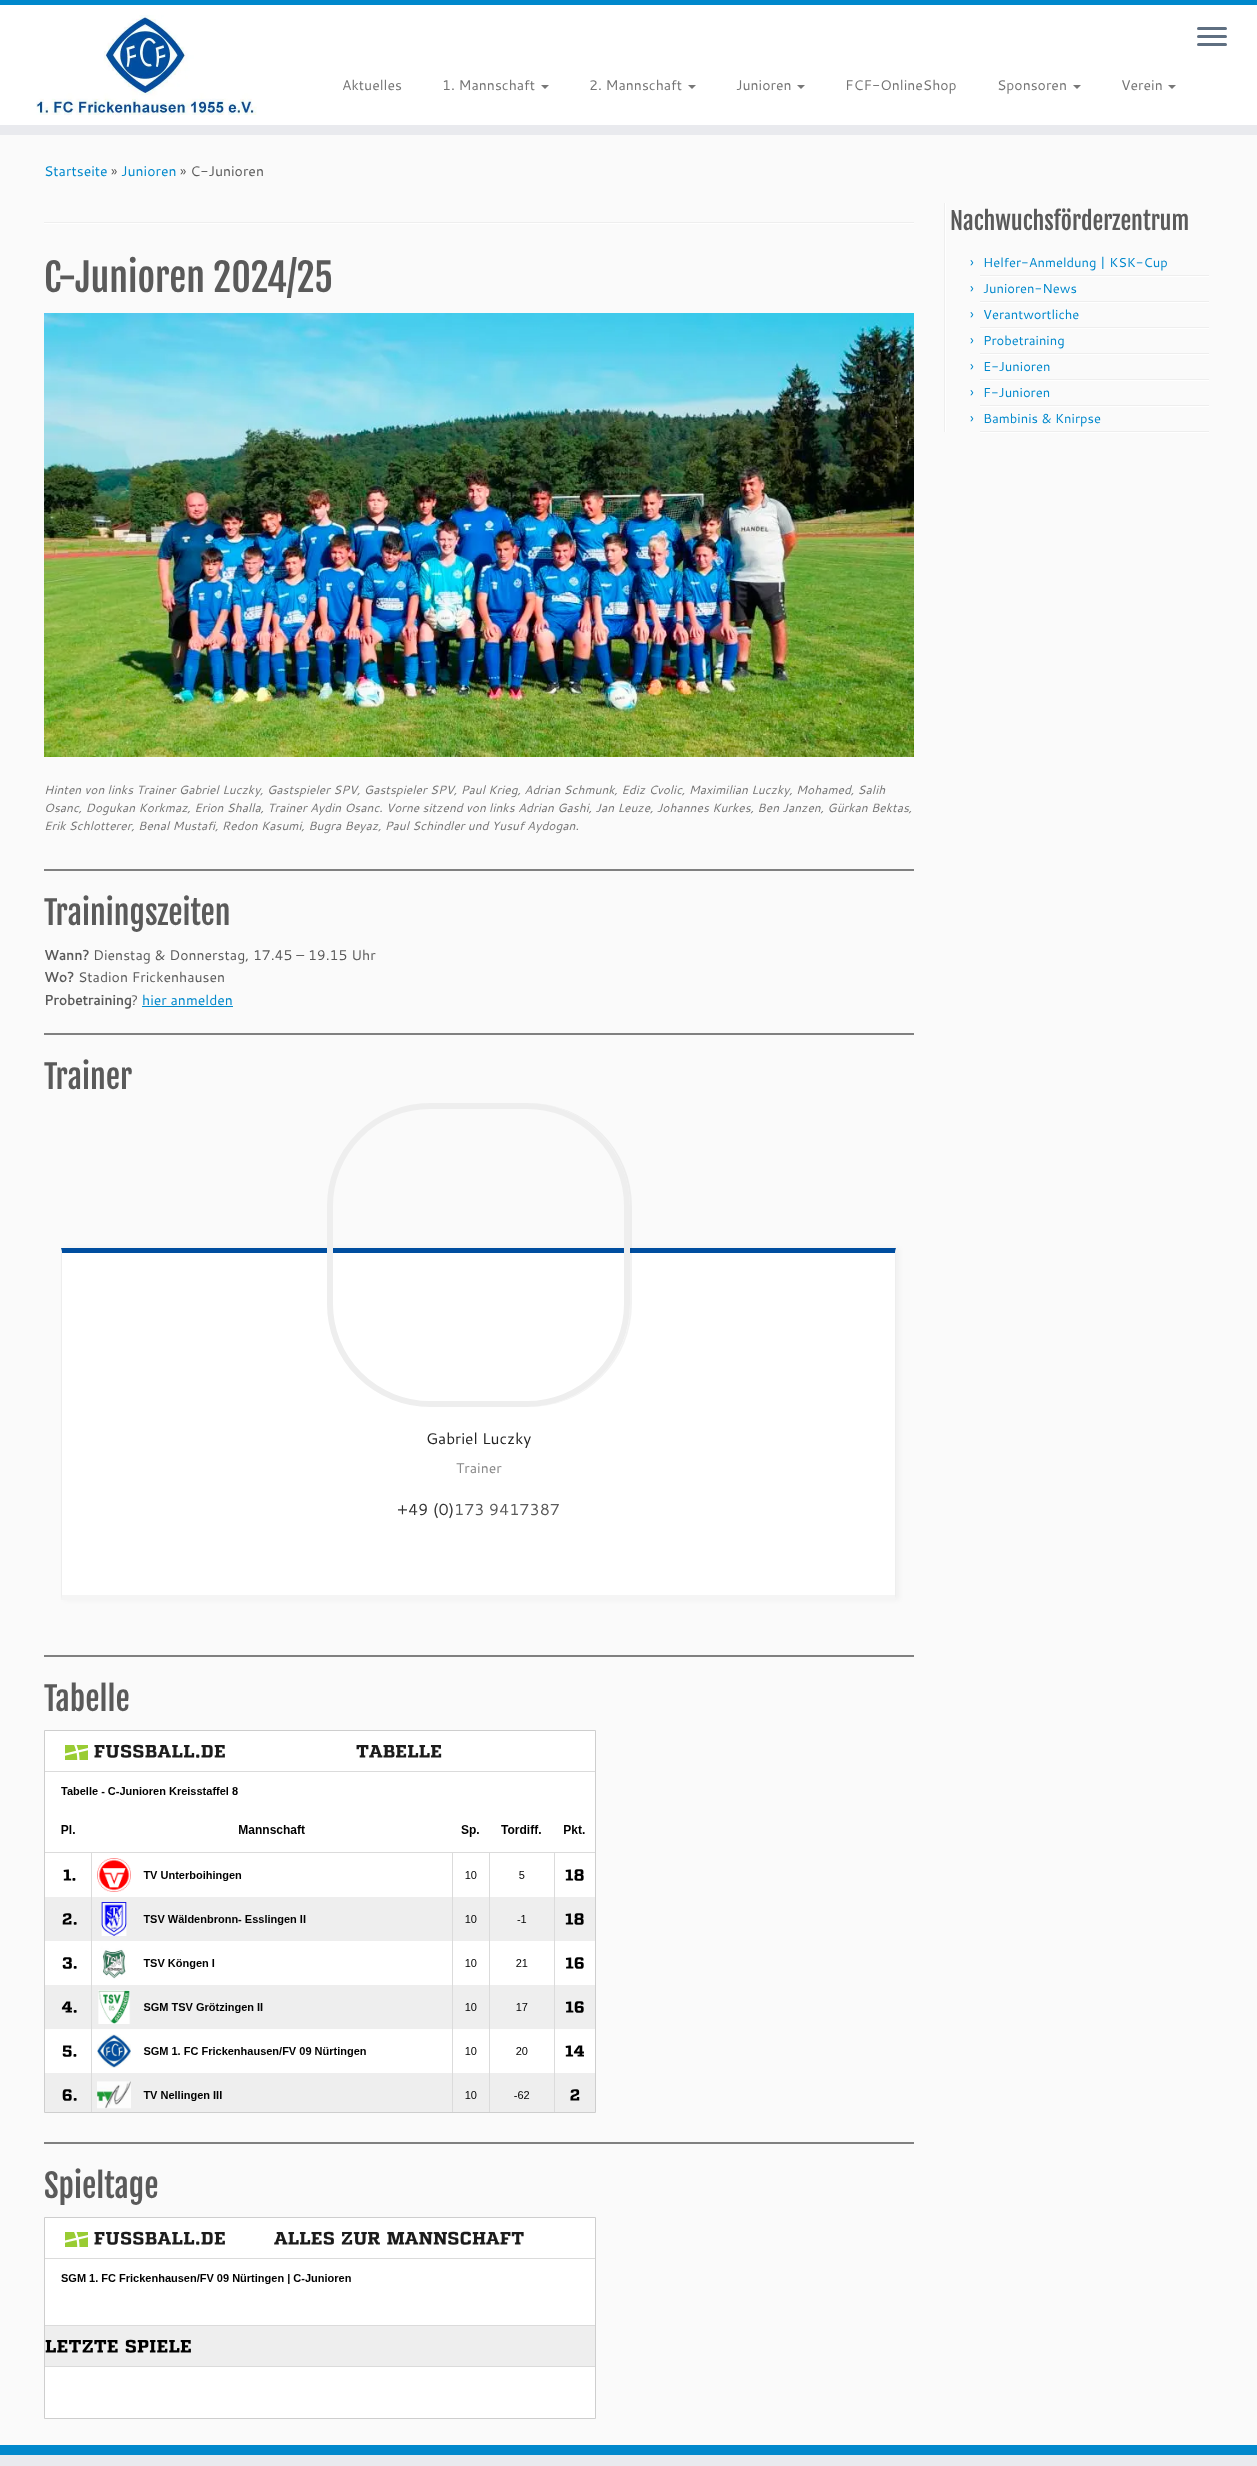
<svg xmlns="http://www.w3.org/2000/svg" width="1257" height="2466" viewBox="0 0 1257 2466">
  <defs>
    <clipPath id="clip1"><path d="M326 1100H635V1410H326ZM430 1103H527C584 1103 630 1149 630 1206V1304C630 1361 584 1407 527 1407H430C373 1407 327 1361 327 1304V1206C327 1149 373 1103 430 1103Z" clip-rule="evenodd"/></clipPath>
  </defs>
  <rect width="100%" height="100%" fill="#fafafa"/>
  <path d="M0 5h1257v120H0z" fill="#fff"/>
  <path d="M0 0h1257v5H0z" fill="#08c"/>
  <path d="M0 125h1257v10H0z" fill="#e9eaee"/>
  <image x="36" y="15" width="221" height="100" href="img/1.png"/>
  <rect x="1197" y="27" width="30" height="3" rx="1.5" fill="#5f6f81"/>
  <rect x="1197" y="35" width="30" height="3" rx="1.5" fill="#5f6f81"/>
  <rect x="1197" y="43" width="30" height="3" rx="1.5" fill="#5f6f81"/>
  <path d="M541 85H549L545 89Z" fill="#777"/>
  <path d="M688 85H696L692 89Z" fill="#777"/>
  <path d="M797 85H805L801 89Z" fill="#777"/>
  <path d="M1073 85H1081L1077 89Z" fill="#777"/>
  <path d="M1168 85H1176L1172 89Z" fill="#777"/>
  <path d="M44 222h870v1H44z" fill="#eee"/>
  <path d="M44 223h870v1H44z" fill="#fff"/>
  <image x="44" y="313" width="870" height="444" href="img/2.png"/>
  <path d="M44 869h870v2H44z" fill="#808080"/>
  <path d="M142 1006h91v1H142z" fill="#08c"/>
  <path d="M44 1033h870v2H44z" fill="#808080"/>
  <path d="M64 1248h835v352H64z" fill="#0000000a" filter="blur(2.5px)"/>
  <path d="M62 1253h833v342H62z" fill="#fff"/>
  <path d="M61 1248H896L895 1253H62Z" fill="#004ea0"/>
  <path d="M896 1248V1600L895 1595V1253Z" fill="#eee"/>
  <path d="M896 1600H61L62 1595H895Z" fill="#f5f5f5"/>
  <path d="M61 1600V1248L62 1253V1595Z" fill="#eee"/>
  <g clip-path="url(#clip1)">
    <rect x="329" y="1103" width="303" height="304" rx="103" fill="#0000000d" filter="blur(0.5px)"/>
  </g>
  <rect x="330" y="1106" width="297" height="298" rx="100" fill="none" stroke="#eee" stroke-width="6"/>
  <path d="M44 1655h870v2H44z" fill="#808080"/>
  <path d="M44.5 1730.5h551v382H44.5z" fill="none" stroke="#cecece"/>
  <image x="45" y="1731" width="550" height="381" href="img/3.png"/>
  <path d="M44 2142h870v2H44z" fill="#808080"/>
  <path d="M44.5 2217.5h551v201H44.5z" fill="none" stroke="#cecece"/>
  <image x="45" y="2218" width="550" height="200" href="img/4.png"/>
  <path d="M944 203h1v229H944z" fill="#eee"/>
  <path d="M945 203h1v229H945z" fill="#fff"/>
  <path d="M980 275h229v1H980z" fill="#eee"/>
  <path d="M980 276h229v1H980z" fill="#fff"/>
  <path d="M980 301h229v1H980z" fill="#eee"/>
  <path d="M980 302h229v1H980z" fill="#fff"/>
  <path d="M980 327h229v1H980z" fill="#eee"/>
  <path d="M980 328h229v1H980z" fill="#fff"/>
  <path d="M980 353h229v1H980z" fill="#eee"/>
  <path d="M980 354h229v1H980z" fill="#fff"/>
  <path d="M980 379h229v1H980z" fill="#eee"/>
  <path d="M980 380h229v1H980z" fill="#fff"/>
  <path d="M980 405h229v1H980z" fill="#eee"/>
  <path d="M980 406h229v1H980z" fill="#fff"/>
  <path d="M980 431h229v1H980z" fill="#eee"/>
  <path d="M980 432h229v1H980z" fill="#fff"/>
  <path d="M0 2455h1257v11H0z" fill="#e9eaee"/>
  <path d="M0 2445h1257v10H0z" fill="#08c"/>
  <g font-family="Cantarell" font-size="14" fill="#757575">
    <text x="342" y="90">Aktuelles</text>
    <text x="442" y="90">1. Mannschaft</text>
    <text x="589" y="90">2. Mannschaft</text>
    <text x="736" y="90">Junioren</text>
    <text x="845" y="90">FCF-OnlineShop</text>
    <text x="997" y="90">Sponsoren</text>
    <text x="1121" y="90">Verein</text>
  </g>
  <text x="44" y="176" font-family="Cantarell" font-size="14" fill="#08c">Startseite</text>
  <text x="111" y="176" font-family="Cantarell" font-size="14" fill="#5a5a5a">»</text>
  <text x="121" y="176" font-family="Cantarell" font-size="14" fill="#08c">Junioren</text>
  <text x="180" y="176" font-family="Cantarell" font-size="14" fill="#5a5a5a">» C-Junioren</text>
  <text x="44" y="292" font-family="Fjalla One" font-size="38" fill="#5a5a5a">C-Junioren 2024/25</text>
  <g font-family="Cantarell" font-size="12" font-style="italic" fill="#757575">
    <text x="44" y="794">Hinten von links Trainer Gabriel Luczky, Gastspieler SPV, Gastspieler SPV, Paul Krieg, Adrian Schmunk, Ediz Cvolic, Maximilian Luczky, Mohamed, Salih</text>
    <text x="44" y="812">Osanc, Dogukan Korkmaz, Erion Shalla, Trainer Aydin Osanc. Vorne sitzend von links Adrian Gashi, Jan Leuze, Johannes Kurkes, Ben Janzen, Gürkan Bektas,</text>
    <text x="44" y="830">Erik Schlotterer, Benal Mustafi, Redon Kasumi, Bugra Beyaz, Paul Schindler und Yusuf Aydogan.</text>
  </g>
  <text x="44" y="925" font-family="Fjalla One" font-size="32" fill="#5a5a5a">Trainingszeiten</text>
  <text x="44" y="960" font-family="Cantarell" font-size="14" font-weight="bold" fill="#5a5a5a">Wann?</text>
  <text x="93" y="960" font-family="Cantarell" font-size="14" fill="#5a5a5a">Dienstag &amp; Donnerstag, 17.45 – 19.15 Uhr</text>
  <text x="44" y="982" font-family="Cantarell" font-size="14" font-weight="bold" fill="#5a5a5a">Wo?</text>
  <text x="78" y="982" font-family="Cantarell" font-size="14" fill="#5a5a5a">Stadion Frickenhausen</text>
  <text x="44" y="1005" font-family="Cantarell" font-size="14" font-weight="bold" fill="#5a5a5a">Probetraining</text>
  <text x="131" y="1005" font-family="Cantarell" font-size="14" fill="#5a5a5a">?</text>
  <text x="142" y="1005" font-family="Cantarell" font-size="14" fill="#08c">hier anmelden</text>
  <text x="44" y="1089" font-family="Fjalla One" font-size="32" fill="#5a5a5a">Trainer</text>
  <text x="426" y="1444" font-family="Cantarell" font-size="15.5" fill="#222">Gabriel Luczky</text>
  <text x="456" y="1473" font-family="Cantarell" font-size="14" fill="#888">Trainer</text>
  <text x="397" y="1515" font-family="Cantarell" font-size="16" fill="#333">+49 (0)</text>
  <text x="454" y="1515" font-family="Cantarell" font-size="16" fill="#5a5a5a">173 9417387</text>
  <g font-family="Fjalla One" font-size="32" fill="#5a5a5a">
    <text x="44" y="1711">Tabelle</text>
    <text x="44" y="2198">Spieltage</text>
  </g>
  <text x="950" y="230" font-family="Fjalla One" font-size="24" fill="#5a5a5a">Nachwuchsförderzentrum</text>
  <text x="970" y="267" font-family="Cantarell" font-size="14" fill="#08c">›</text>
  <text x="983" y="267" font-family="Cantarell" font-size="13" fill="#08c">Helfer-Anmeldung | KSK-Cup</text>
  <text x="970" y="293" font-family="Cantarell" font-size="14" fill="#08c">›</text>
  <text x="983" y="293" font-family="Cantarell" font-size="13" fill="#08c">Junioren-News</text>
  <text x="970" y="319" font-family="Cantarell" font-size="14" fill="#08c">›</text>
  <text x="983" y="319" font-family="Cantarell" font-size="13" fill="#08c">Verantwortliche</text>
  <text x="970" y="345" font-family="Cantarell" font-size="14" fill="#08c">›</text>
  <text x="983" y="345" font-family="Cantarell" font-size="13" fill="#08c">Probetraining</text>
  <text x="970" y="371" font-family="Cantarell" font-size="14" fill="#08c">›</text>
  <text x="983" y="371" font-family="Cantarell" font-size="13" fill="#08c">E-Junioren</text>
  <text x="970" y="397" font-family="Cantarell" font-size="14" fill="#08c">›</text>
  <text x="983" y="397" font-family="Cantarell" font-size="13" fill="#08c">F-Junioren</text>
  <text x="970" y="423" font-family="Cantarell" font-size="14" fill="#08c">›</text>
  <text x="983" y="423" font-family="Cantarell" font-size="13" fill="#08c">Bambinis &amp; Knirpse</text>
</svg>
